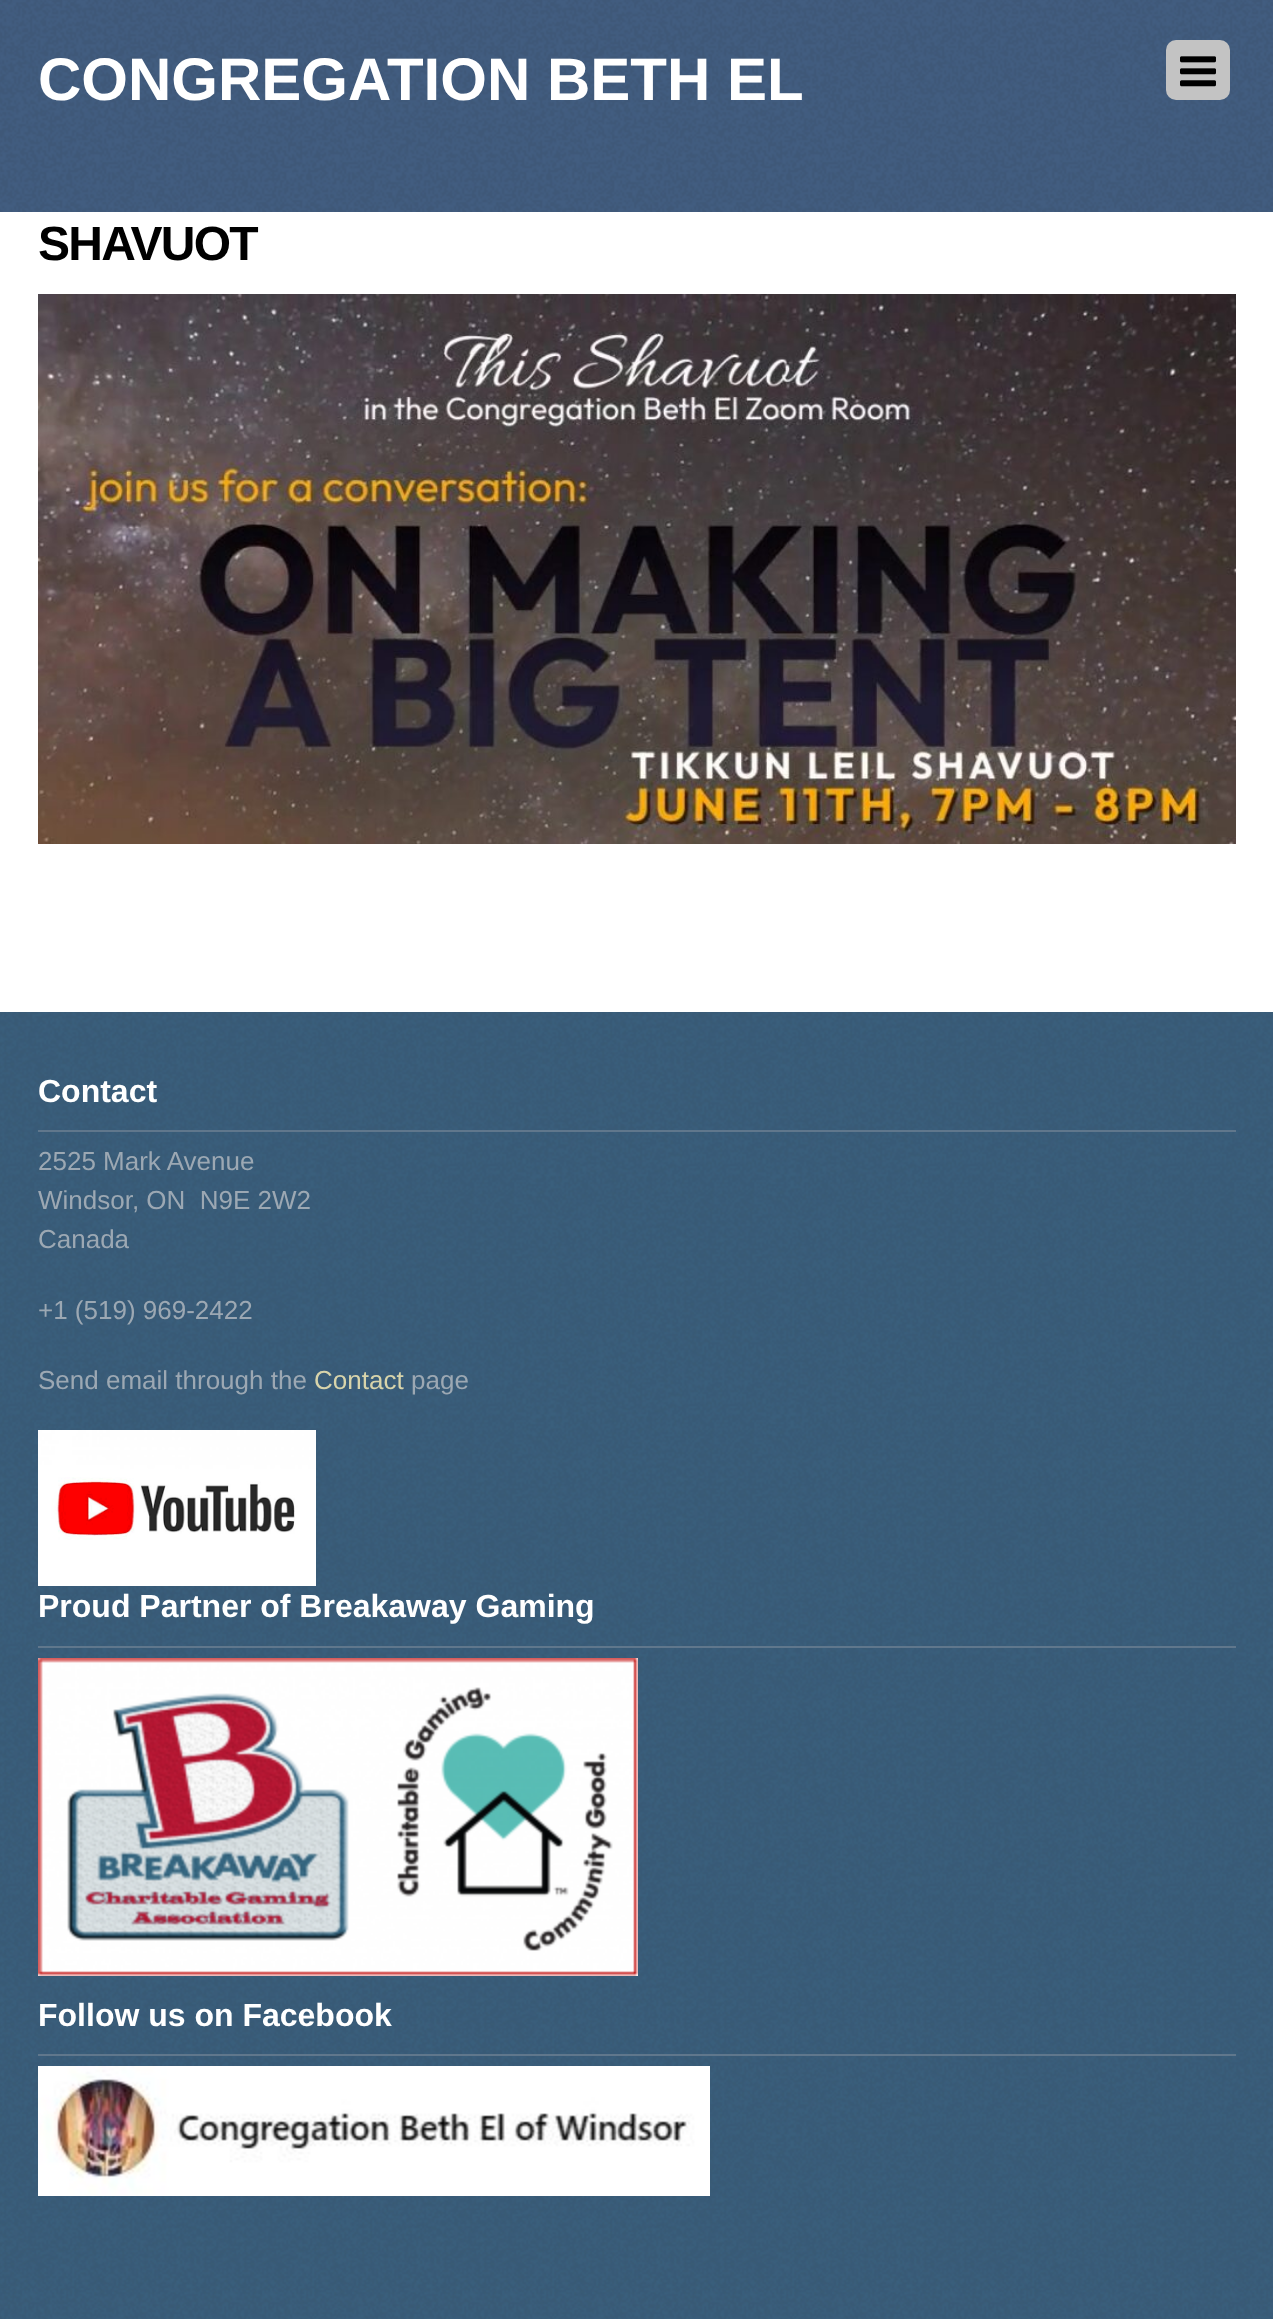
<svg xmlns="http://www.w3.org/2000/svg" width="1273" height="2319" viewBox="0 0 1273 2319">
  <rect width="100%" height="100%" fill="#fff"/>
  <image x="0" y="0" width="1273" height="212" href="img/1.png"/>
  <rect x="1166" y="40" width="64" height="60" rx="10" fill="#c3c3c3"/>
  <image x="1180" y="56" width="36" height="31" href="img/2.png"/>
  <image x="38" y="294" width="1198" height="550" href="img/3.png"/>
  <image x="0" y="1012" width="1273" height="1307" href="img/4.png"/>
  <path d="M38 1130h1198v2H38z" fill="#60778c"/>
  <image x="38" y="1430" width="278" height="156" href="img/5.png"/>
  <path d="M38 1646h1198v2H38z" fill="#60778c"/>
  <image x="38" y="1658" width="600" height="318" href="img/6.png"/>
  <path d="M38 2054h1198v2H38z" fill="#60778c"/>
  <image x="38" y="2066" width="672" height="130" href="img/7.png"/>
  <text x="38" y="100" font-family="Liberation Sans" font-size="60" font-weight="bold" fill="#fff">CONGREGATION BETH EL</text>
  <text x="38" y="260" font-family="Liberation Sans" font-size="48" font-weight="bold" letter-spacing="-1.75" fill="#000">SHAVUOT</text>
  <text x="38" y="1102" font-family="Liberation Sans" font-size="32" font-weight="bold" fill="#fff">Contact</text>
  <g font-family="Liberation Sans" font-size="26" fill="#9ca8b3">
    <text x="38" y="1170">2525 Mark Avenue</text>
    <text x="38" y="1209" xml:space="preserve">Windsor, ON  N9E 2W2</text>
    <text x="38" y="1248">Canada</text>
    <text x="38" y="1319">+1 (519) 969-2422</text>
    <text x="38" y="1389">Send email through the</text>
  </g>
  <text x="314" y="1389" font-family="Liberation Sans" font-size="26" fill="#d8d4ab">Contact</text>
  <text x="411" y="1389" font-family="Liberation Sans" font-size="26" fill="#9ca8b3">page</text>
  <g font-family="Liberation Sans" font-size="32" font-weight="bold" fill="#fff">
    <text x="38" y="1617">Proud Partner of Breakaway Gaming</text>
    <text x="38" y="2026">Follow us on Facebook</text>
  </g>
</svg>
